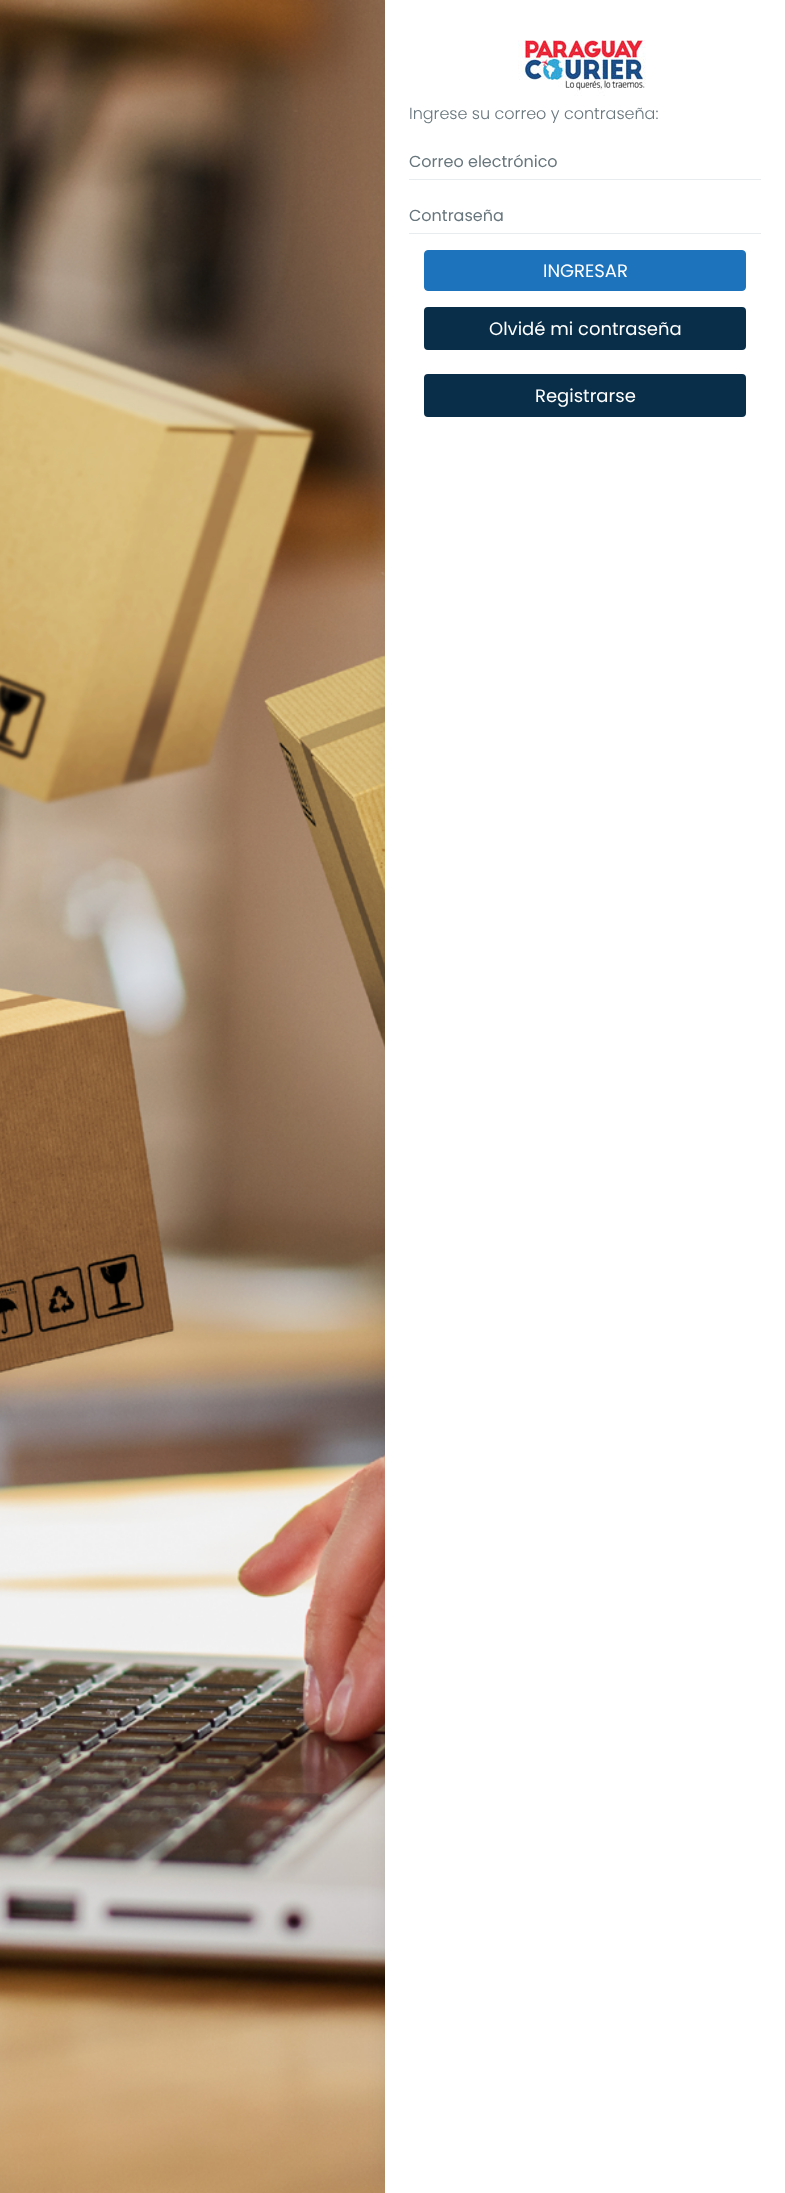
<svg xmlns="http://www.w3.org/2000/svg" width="785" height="2193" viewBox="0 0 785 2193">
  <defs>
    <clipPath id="clip1"><path d="M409 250h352v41H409z"/></clipPath>
  </defs>
  <rect width="100%" height="100%" fill="#fff"/>
  <image x="0" y="0" width="385" height="2193" href="img/1.png"/>
  <path d="M386 0h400v2193H386z" fill="#00000014" filter="blur(10px)"/>
  <path d="M385 0h400v2193H385z" fill="#fff"/>
  <image x="518" y="40" width="128" height="56" href="img/2.png"/>
  <path d="M409 179h352v1H409z" fill="#e9ecef"/>
  <path d="M409 233h352v1H409z" fill="#e9ecef"/>
  <g clip-path="url(#clip1)">
    <rect x="424" y="252" width="322" height="41" rx="4" fill="#ffb22b0d" filter="blur(1px)"/>
  </g>
  <rect x="424.5" y="250.5" width="321" height="40" rx="3.5" fill="#1e73bd" stroke="#1e73bd"/>
  <rect x="425" y="308" width="320" height="41" rx="3" fill="#082e49" stroke="#082e49" stroke-width="2"/>
  <rect x="425" y="375" width="320" height="41" rx="3" fill="#082e49" stroke="#082e49" stroke-width="2"/>
  <text x="409" y="119" font-family="Poppins" font-size="16" font-weight="300" fill="#67757c">Ingrese su correo y contraseña:</text>
  <g font-family="Poppins" font-size="16" fill="#67757c">
    <text x="409" y="167">Correo electrónico</text>
    <text x="409" y="221">Contraseña</text>
  </g>
  <g font-family="Poppins" font-size="18" fill="#fff">
    <text x="543" y="277">INGRESAR</text>
    <text x="489" y="335">Olvidé mi contraseña</text>
    <text x="535" y="402">Registrarse</text>
  </g>
</svg>
